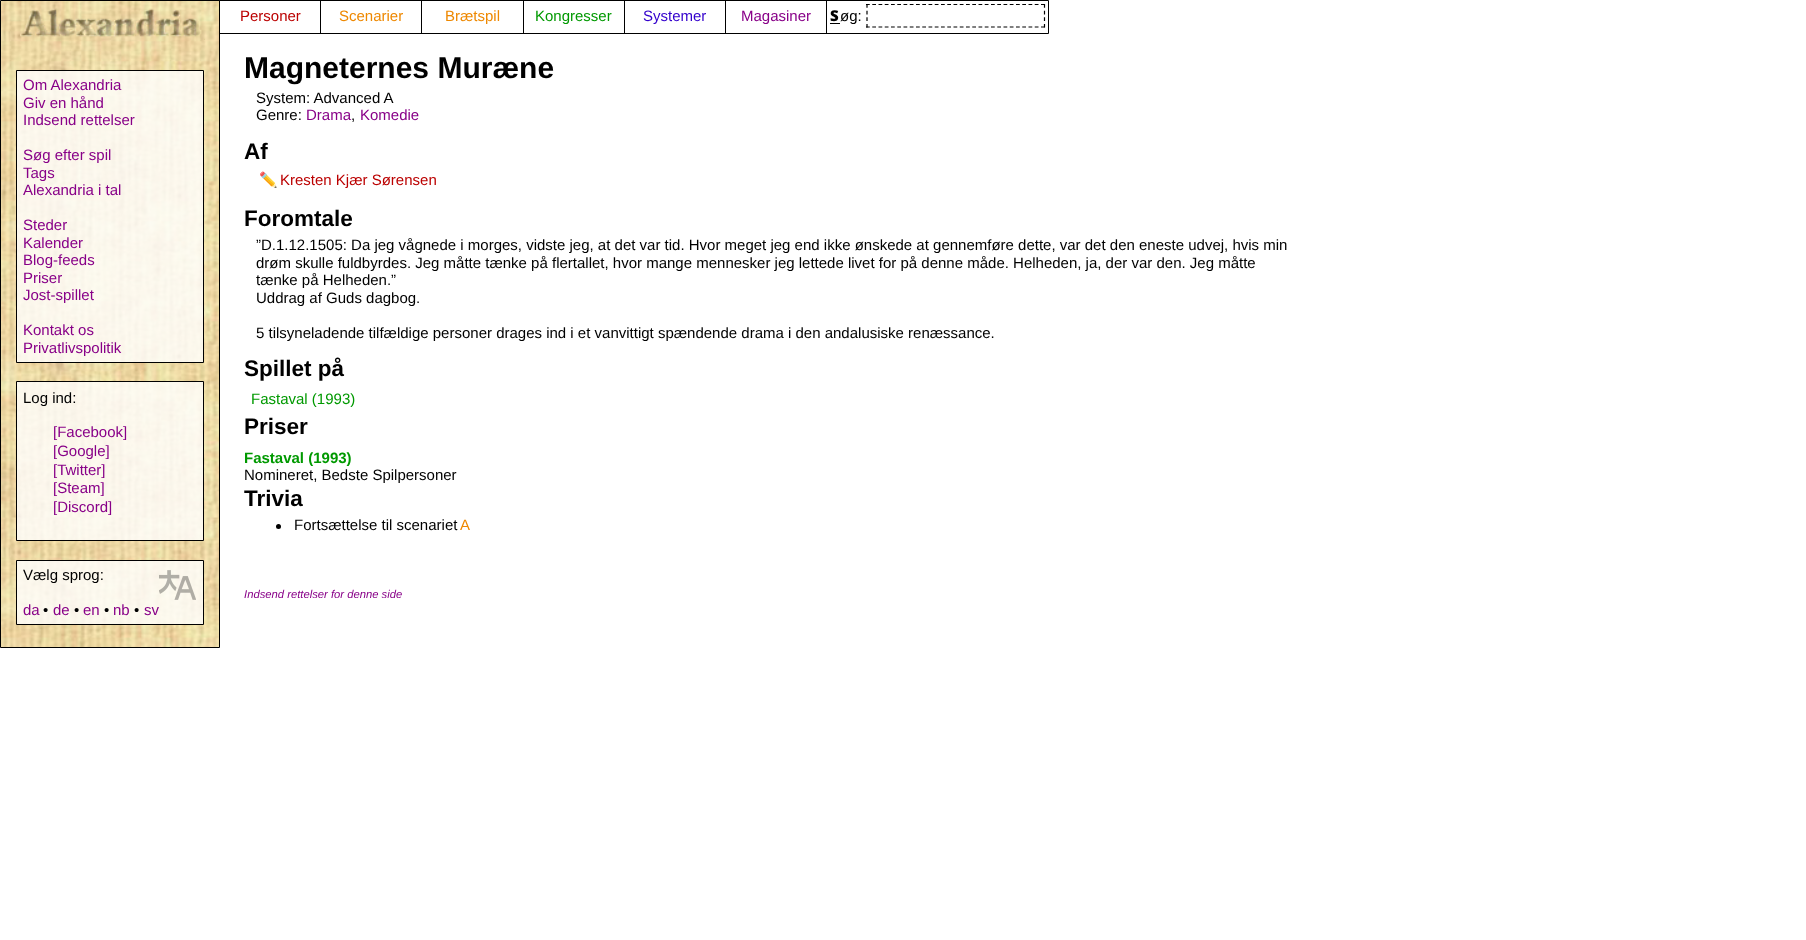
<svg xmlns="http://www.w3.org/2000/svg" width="1806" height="940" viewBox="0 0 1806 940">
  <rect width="100%" height="100%" fill="#fff"/>
  <image x="1" y="1" width="218" height="646" href="img/1.png"/>
  <path d="M0.5 0.5h219v647H0.5z" fill="none" stroke="#000"/>
  <path d="M219.5 0.5h829v33H219.5z" fill="none" stroke="#000"/>
  <path d="M320 1h1v32H320z" fill="#000"/>
  <path d="M421 1h1v32H421z" fill="#000"/>
  <path d="M523 1h1v32H523z" fill="#000"/>
  <path d="M624 1h1v32H624z" fill="#000"/>
  <path d="M725 1h1v32H725z" fill="#000"/>
  <path d="M826 1h1v32H826z" fill="#000"/>
  <path d="M830 23h10v1H830z" fill="#000"/>
  <path d="M866 4.5H1045" fill="none" stroke="#000" stroke-width="1.2" stroke-dasharray="3.75 2.5"/>
  <path d="M1044.5 4V27.5" fill="none" stroke="#000" stroke-width="1.2" stroke-dasharray="3.75 2.91"/>
  <path d="M866 27H1045" fill="none" stroke="#000" stroke-width="1.2" stroke-dasharray="3.75 2.5"/>
  <path d="M867 4V27.5" fill="none" stroke="#000" stroke-width="1.2" stroke-dasharray="3.75 2.91"/>
  <image x="20" y="8" width="185" height="32" href="img/2.png"/>
  <path d="M16.5 70.5h187v292H16.5z" fill="#ffffffcc" stroke="#000"/>
  <path d="M16.5 381.5h187v159H16.5z" fill="#ffffffcc" stroke="#000"/>
  <path d="M16.5 560.5h187v64H16.5z" fill="#ffffffcc" stroke="#000"/>
  <image x="159" y="570" width="37" height="30" href="img/3.png"/>
  <circle cx="278.5" cy="526.5" r="2.5" fill="#000"/>
  <text x="240" y="21" font-family="Liberation Sans" font-size="15" fill="#b00">Personer</text>
  <g font-family="Liberation Sans" font-size="15" fill="#e80">
    <text x="339" y="21">Scenarier</text>
    <text x="445" y="21">Brætspil</text>
  </g>
  <text x="535" y="21" font-family="Liberation Sans" font-size="15" fill="#090">Kongresser</text>
  <text x="643" y="21" font-family="Liberation Sans" font-size="15" fill="#30c">Systemer</text>
  <text x="741" y="21" font-family="Liberation Sans" font-size="15" fill="#808">Magasiner</text>
  <text x="830" y="21" font-family="Noto Sans" font-size="15" font-weight="900" fill="#000">S</text>
  <text x="840" y="21" font-family="Liberation Sans" font-size="15" fill="#000">øg:</text>
  <g font-family="Liberation Sans" font-size="15" fill="#808">
    <text x="23" y="90">Om Alexandria</text>
    <text x="23" y="108">Giv en hånd</text>
    <text x="23" y="125">Indsend rettelser</text>
    <text x="23" y="160">Søg efter spil</text>
    <text x="23" y="178">Tags</text>
    <text x="23" y="195">Alexandria i tal</text>
    <text x="23" y="230">Steder</text>
    <text x="23" y="248">Kalender</text>
    <text x="23" y="265">Blog-feeds</text>
    <text x="23" y="283">Priser</text>
    <text x="23" y="300">Jost-spillet</text>
    <text x="23" y="335">Kontakt os</text>
    <text x="23" y="353">Privatlivspolitik</text>
  </g>
  <text x="23" y="403" font-family="Liberation Sans" font-size="15" fill="#000">Log ind:</text>
  <g font-family="Liberation Sans" font-size="15" fill="#808">
    <text x="53" y="437">[Facebook]</text>
    <text x="53" y="456">[Google]</text>
    <text x="53" y="475">[Twitter]</text>
    <text x="53" y="493">[Steam]</text>
    <text x="53" y="512">[Discord]</text>
  </g>
  <text x="23" y="580" font-family="Liberation Sans" font-size="15" fill="#000">Vælg sprog:</text>
  <text x="23" y="615" font-family="Liberation Sans" font-size="15" fill="#808">da</text>
  <text x="43" y="615" font-family="Liberation Sans" font-size="15" fill="#000">•</text>
  <text x="53" y="615" font-family="Liberation Sans" font-size="15" fill="#808">de</text>
  <text x="74" y="615" font-family="Liberation Sans" font-size="15" fill="#000">•</text>
  <text x="83" y="615" font-family="Liberation Sans" font-size="15" fill="#808">en</text>
  <text x="104" y="615" font-family="Liberation Sans" font-size="15" fill="#000">•</text>
  <text x="113" y="615" font-family="Liberation Sans" font-size="15" fill="#808">nb</text>
  <text x="134" y="615" font-family="Liberation Sans" font-size="15" fill="#000">•</text>
  <text x="144" y="615" font-family="Liberation Sans" font-size="15" fill="#808">sv</text>
  <text x="244" y="78" font-family="Liberation Sans" font-size="30" font-weight="bold" fill="#000">Magneternes Muræne</text>
  <g font-family="Liberation Sans" font-size="15" fill="#000">
    <text x="256" y="103">System: Advanced A</text>
    <text x="256" y="120">Genre:</text>
  </g>
  <text x="306" y="120" font-family="Liberation Sans" font-size="15" fill="#808">Drama</text>
  <text x="351" y="120" font-family="Liberation Sans" font-size="15" fill="#000">,</text>
  <text x="360" y="120" font-family="Liberation Sans" font-size="15" fill="#808">Komedie</text>
  <text x="244" y="159" font-family="Liberation Sans" font-size="22.5" font-weight="bold" fill="#000">Af</text>
  <text x="259" y="185" font-family="Noto Color Emoji" font-size="15" fill="#000">✏️</text>
  <text x="280" y="185" font-family="Liberation Sans" font-size="15" fill="#b00">Kresten Kjær Sørensen</text>
  <text x="244" y="226" font-family="Liberation Sans" font-size="22.5" font-weight="bold" fill="#000">Foromtale</text>
  <g font-family="Liberation Sans" font-size="15" fill="#000">
    <text x="256" y="250">”D.1.12.1505: Da jeg vågnede i morges, vidste jeg, at det var tid. Hvor meget jeg end ikke ønskede at gennemføre dette, var det den eneste udvej, hvis min</text>
    <text x="256" y="268">drøm skulle fuldbyrdes. Jeg måtte tænke på flertallet, hvor mange mennesker jeg lettede livet for på denne måde. Helheden, ja, der var den. Jeg måtte</text>
    <text x="256" y="285">tænke på Helheden.”</text>
    <text x="256" y="303">Uddrag af Guds dagbog.</text>
    <text x="256" y="338">5 tilsyneladende tilfældige personer drages ind i et vanvittigt spændende drama i den andalusiske renæssance.</text>
  </g>
  <text x="244" y="376" font-family="Liberation Sans" font-size="22.5" font-weight="bold" fill="#000">Spillet på</text>
  <text x="251" y="404" font-family="Liberation Sans" font-size="15" fill="#090">Fastaval (1993)</text>
  <text x="244" y="434" font-family="Liberation Sans" font-size="22.5" font-weight="bold" fill="#000">Priser</text>
  <text x="244" y="463" font-family="Liberation Sans" font-size="15" font-weight="bold" fill="#090">Fastaval (1993)</text>
  <text x="244" y="480" font-family="Liberation Sans" font-size="15" fill="#000">Nomineret, Bedste Spilpersoner</text>
  <text x="244" y="506" font-family="Liberation Sans" font-size="22.5" font-weight="bold" fill="#000">Trivia</text>
  <text x="294" y="530" font-family="Liberation Sans" font-size="15" fill="#000">Fortsættelse til scenariet</text>
  <text x="460" y="530" font-family="Liberation Sans" font-size="15" fill="#e80">A</text>
  <text x="244" y="598" font-family="Liberation Sans" font-size="11.25" font-style="italic" fill="#808">Indsend rettelser for denne side</text>
</svg>
